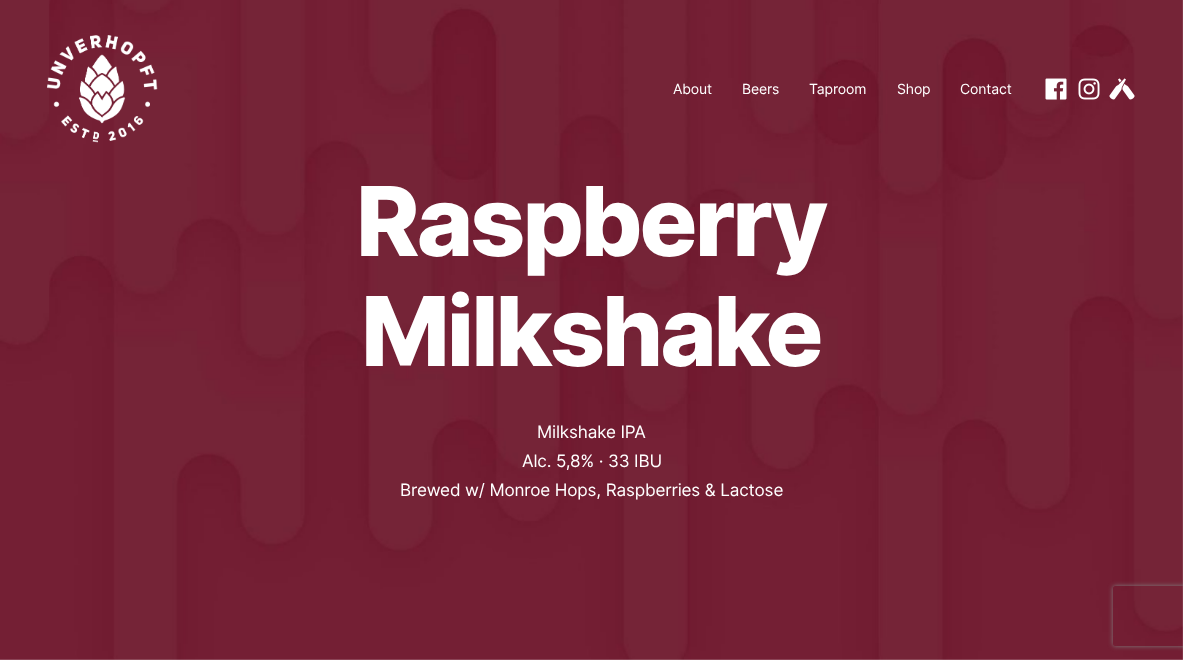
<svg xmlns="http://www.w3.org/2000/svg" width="1183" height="660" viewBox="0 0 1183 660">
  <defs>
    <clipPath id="clip1"><path d="M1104 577H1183V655H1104ZM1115 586H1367C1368 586 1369 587 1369 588V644C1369 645 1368 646 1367 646H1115C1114 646 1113 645 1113 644V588C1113 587 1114 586 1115 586Z" clip-rule="evenodd"/></clipPath>
  </defs>
  <rect width="100%" height="100%" fill="#fff"/>
  <image x="0" y="0" width="1183" height="660" href="img/5.png"/>
  <image x="47" y="35" width="111" height="108" href="img/1.png"/>
  <image x="1045" y="78" width="22" height="22" href="img/2.png"/>
  <image x="1078" y="78" width="22" height="22" href="img/3.png"/>
  <image x="1109" y="78" width="26" height="22" href="img/4.png"/>
  <g clip-path="url(#clip1)">
    <rect x="1113" y="586" width="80" height="60" rx="2" fill="#808080" filter="blur(2.5px)"/>
  </g>
  <g font-family="Inter" font-size="14" letter-spacing="-0.15" fill="#fff">
    <text x="673" y="94">About</text>
    <text x="742" y="94">Beers</text>
    <text x="809" y="94">Taproom</text>
    <text x="897" y="94">Shop</text>
    <text x="960" y="94">Contact</text>
  </g>
  <g font-family="Inter" font-size="96.25" font-weight="800" letter-spacing="-3" fill="#fff">
    <text x="356" y="256">Raspberry</text>
    <text x="361" y="366">Milkshake</text>
  </g>
  <g font-family="Inter" font-size="17.1" letter-spacing="-0.15" fill="#fff">
    <text x="537" y="438">Milkshake IPA</text>
    <text x="522" y="467">Alc. 5,8% · 33 IBU</text>
    <text x="400" y="496">Brewed w/ Monroe Hops, Raspberries &amp; Lactose</text>
  </g>
</svg>
